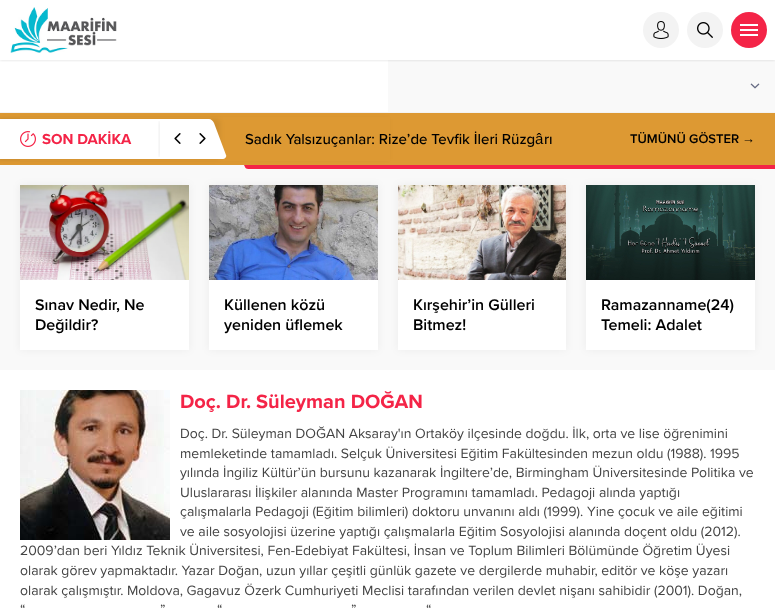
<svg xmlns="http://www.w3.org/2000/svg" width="775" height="608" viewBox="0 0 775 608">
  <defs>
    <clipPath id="clip1"><path d="M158 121h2v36H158z"/></clipPath>
    <clipPath id="clip2"><path d="M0 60h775v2H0z"/></clipPath>
  </defs>
  <rect width="100%" height="100%" fill="#fff"/>
  <path d="M0 113h775v52H0z" fill="#d93"/>
  <path d="M0 165h775v205H0z" fill="#f9f9f9"/>
  <path d="M0 119h388v40H0z" fill="#00000012" filter="blur(2.5px)"/>
  <path d="M20 117h370v44H20z" fill="#d93"/>
  <rect x="-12" y="119" width="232" height="40" rx="4" fill="#00000012" filter="blur(2.5px)"/>
  <path d="M-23 119H209C211 119 213 121 214 123L226 155C227 157 225 159 223 159H-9C-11 159-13 157-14 155L-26 123C-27 121-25 119-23 119Z" fill="#fff"/>
  <g clip-path="url(#clip1)">
    <path d="M160 121h50v36H160z" fill="#0000001a" filter="blur(2.5px)"/>
  </g>
  <path d="M0 112h775v1H0z" fill="#f3f3f3"/>
  <path d="M388 60h387v52H388z" fill="#f9f9f9"/>
  <g clip-path="url(#clip2)">
    <path d="M0 0h775v60H0z" fill="#00000026" filter="blur(1.5px)"/>
  </g>
  <image x="10" y="7" width="107" height="46" href="img/1.png"/>
  <circle cx="661" cy="30" r="18" fill="#f3f3f3"/>
  <image x="653" y="21" width="16" height="18" href="img/2.png"/>
  <circle cx="705" cy="30" r="18" fill="#f3f3f3"/>
  <image x="697" y="22" width="16" height="16" href="img/3.png"/>
  <circle cx="749" cy="30" r="18" fill="#f42447"/>
  <image x="740" y="24" width="18" height="12" href="img/4.png"/>
  <image x="750" y="83" width="10" height="6" href="img/5.png"/>
  <image x="20" y="131" width="16" height="16" href="img/6.png"/>
  <image x="174" y="133" width="7" height="11" href="img/7.png"/>
  <image x="199" y="133" width="7" height="11" href="img/8.png"/>
  <path d="M244 165H624L625 169H248C247 169 245 168 245 167Z" fill="#f42447"/>
  <path d="M624 165h151v4H624z" fill="#f42447"/>
  <path d="M20 185h169v165H20z" fill="#0000000d" filter="blur(4px)"/>
  <image x="20" y="185" width="169" height="95" href="img/9.png"/>
  <path d="M20 280h169v70H20z" fill="#fff"/>
  <path d="M209 185h169v165H209z" fill="#0000000d" filter="blur(4px)"/>
  <image x="209" y="185" width="169" height="95" href="img/10.png"/>
  <path d="M209 280h169v70H209z" fill="#fff"/>
  <path d="M398 185h168v165H398z" fill="#0000000d" filter="blur(4px)"/>
  <image x="398" y="185" width="168" height="95" href="img/11.png"/>
  <path d="M398 280h168v70H398z" fill="#fff"/>
  <path d="M586 185h169v165H586z" fill="#0000000d" filter="blur(4px)"/>
  <image x="586" y="185" width="169" height="95" href="img/12.png"/>
  <path d="M586 280h169v70H586z" fill="#fff"/>
  <image x="20" y="390" width="150" height="150" href="img/13.png"/>
  <text x="42" y="144" font-family="Proxima Nova" font-size="15" font-weight="bold" fill="#f42447">SON DAKİKA</text>
  <text x="245" y="144" font-family="Proxima Nova" font-size="15" font-weight="500" fill="#000">Sadık Yalsızuçanlar: Rize’de Tevfik İleri Rüzg</text>
  <text x="535" y="144" font-family="Liberation Sans" font-size="15" fill="#000">â</text>
  <text x="544" y="144" font-family="Proxima Nova" font-size="15" font-weight="500" fill="#000">rı</text>
  <text x="630" y="143" font-family="Proxima Nova" font-size="13" font-weight="600" fill="#000">TÜMÜNÜ GÖSTER</text>
  <text x="742" y="143" font-family="Liberation Sans" font-size="13" font-weight="bold" fill="#000">→</text>
  <g font-family="Proxima Nova" font-size="16" font-weight="600" fill="#000">
    <text x="35" y="310">Sınav Nedir, Ne</text>
    <text x="35" y="330">Değildir?</text>
    <text x="224" y="310">Küllenen közü</text>
    <text x="224" y="330">yeniden üflemek</text>
    <text x="413" y="310">Kırşehir’in Gülleri</text>
    <text x="413" y="330">Bitmez!</text>
    <text x="601" y="310">Ramazanname(24)</text>
    <text x="601" y="330">Temeli: Adalet</text>
  </g>
  <text x="180" y="408" font-family="Proxima Nova" font-size="20" font-weight="bold" fill="#f42447">Doç. Dr. Süleyman DOĞAN</text>
  <g font-family="Proxima Nova" font-size="14" fill="#434343">
    <text x="180" y="438">Doç. Dr. Süleyman DOĞAN Aksaray'ın Ortaköy ilçesinde doğdu. İlk, orta ve lise öğrenimini</text>
    <text x="180" y="458">memleketinde tamamladı. Selçuk Üniversitesi Eğitim Fakültesinden mezun oldu (1988). 1995</text>
    <text x="180" y="477">yılında İngiliz Kültür’ün bursunu kazanarak İngiltere’de, Birmingham Üniversitesinde Politika ve</text>
    <text x="180" y="497">Uluslararası İlişkiler alanında Master Programını tamamladı. Pedagoji alında yaptığı</text>
    <text x="180" y="516">çalışmalarla Pedagoji (Eğitim bilimleri) doktoru unvanını aldı (1999). Yine çocuk ve aile eğitimi</text>
    <text x="180" y="536">ve aile sosyolojisi üzerine yaptığı çalışmalarla Eğitim Sosyolojisi alanında doçent oldu (2012).</text>
    <text x="20" y="555">2009’dan beri Yıldız Teknik Üniversitesi, Fen-Edebiyat Fakültesi, İnsan ve Toplum Bilimleri Bölümünde Öğretim Üyesi</text>
    <text x="20" y="575">olarak görev yapmaktadır. Yazar Doğan, uzun yıllar çeşitli günlük gazete ve dergilerde muhabir, editör ve köşe yazarı</text>
    <text x="20" y="595">olarak çalışmıştır. Moldova, Gagavuz Özerk Cumhuriyeti Meclisi tarafından verilen devlet nişanı sahibidir (2001). Doğan,</text>
    <text x="20" y="614">“</text>
    <text x="160" y="614">”</text>
    <text x="217" y="614">“</text>
    <text x="351" y="614">”</text>
    <text x="426" y="614">“</text>
  </g>
</svg>
